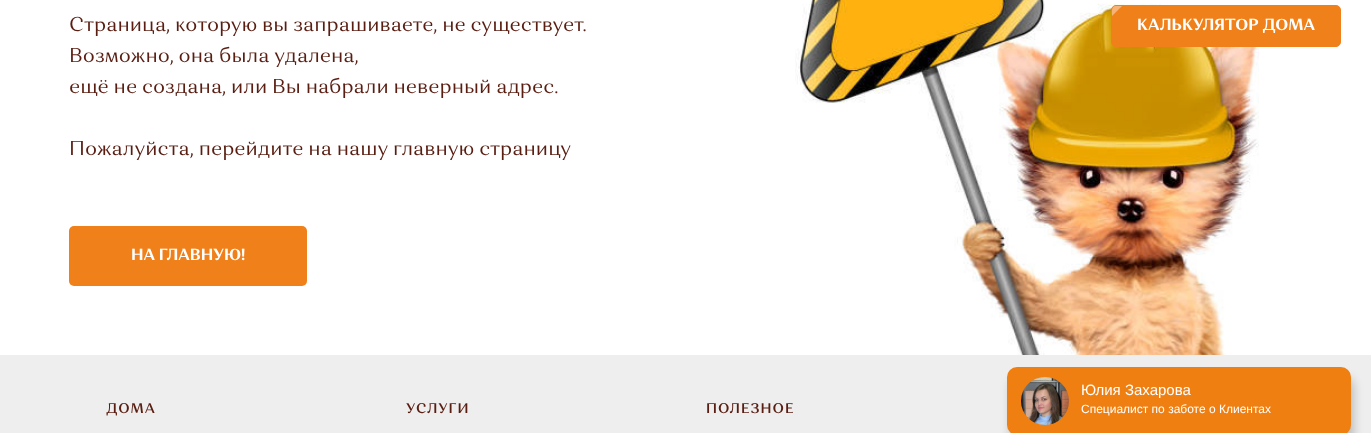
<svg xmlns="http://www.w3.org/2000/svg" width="1371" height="433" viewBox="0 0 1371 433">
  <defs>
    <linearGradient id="g1" gradientUnits="userSpaceOnUse" x1="1057" y1="26" x2="1102" y2="26"><stop offset="0" stop-color="#f28d31"/><stop offset="1" stop-color="#f6b376"/></linearGradient>
  </defs>
  <rect width="100%" height="100%" fill="#fff"/>
  <rect x="69" y="226" width="238" height="60" rx="5" fill="#f0801a"/>
  <image x="795" y="0" width="464" height="355" href="img/1.png"/>
  <rect x="1111.5" y="5.5" width="229" height="41" rx="4.5" fill="#f0801a" stroke="#f0801a"/>
  <path d="M1116 6C1111 6 1112 12.5 1112 16L1122 6Z" fill="url(#g1)"/>
  <path d="M0 355h1371v78H0z" fill="#eee"/>
  <rect x="1010" y="377" width="344" height="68" rx="10" fill="#00000033" filter="blur(5px)"/>
  <rect x="1007" y="367" width="344" height="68" rx="10" fill="#ef7f11"/>
  <image x="1021" y="377" width="48" height="48" href="img/2.png"/>
  <g font-family="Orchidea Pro" font-size="20" fill="#591d11">
    <text x="69" y="31">Страница, которую вы запрашиваете, не существует.</text>
    <text x="69" y="62">Возможно, она была удалена,</text>
    <text x="69" y="93">ещё не создана, или Вы набрали неверный адрес.</text>
    <text x="69" y="155">Пожалуйста, перейдите на нашу главную страницу</text>
  </g>
  <g font-family="Orchidea Pro" font-size="16" font-weight="bold" fill="#fff">
    <text x="131" y="260">НА ГЛАВНУЮ!</text>
    <text x="1137" y="30">КАЛЬКУЛЯТОР ДОМА</text>
  </g>
  <g font-family="Orchidea Pro" font-size="14" font-weight="600" letter-spacing="1" fill="#591d11">
    <text x="106" y="413">ДОМА</text>
    <text x="406" y="413">УСЛУГИ</text>
    <text x="706" y="413">ПОЛЕЗНОЕ</text>
  </g>
  <text x="1081" y="395" font-family="Liberation Sans" font-size="15" fill="#fff">Юлия Захарова</text>
  <text x="1081" y="413" font-family="Liberation Sans" font-size="12" fill="#fff">Специалист по заботе о Клиентах</text>
</svg>
